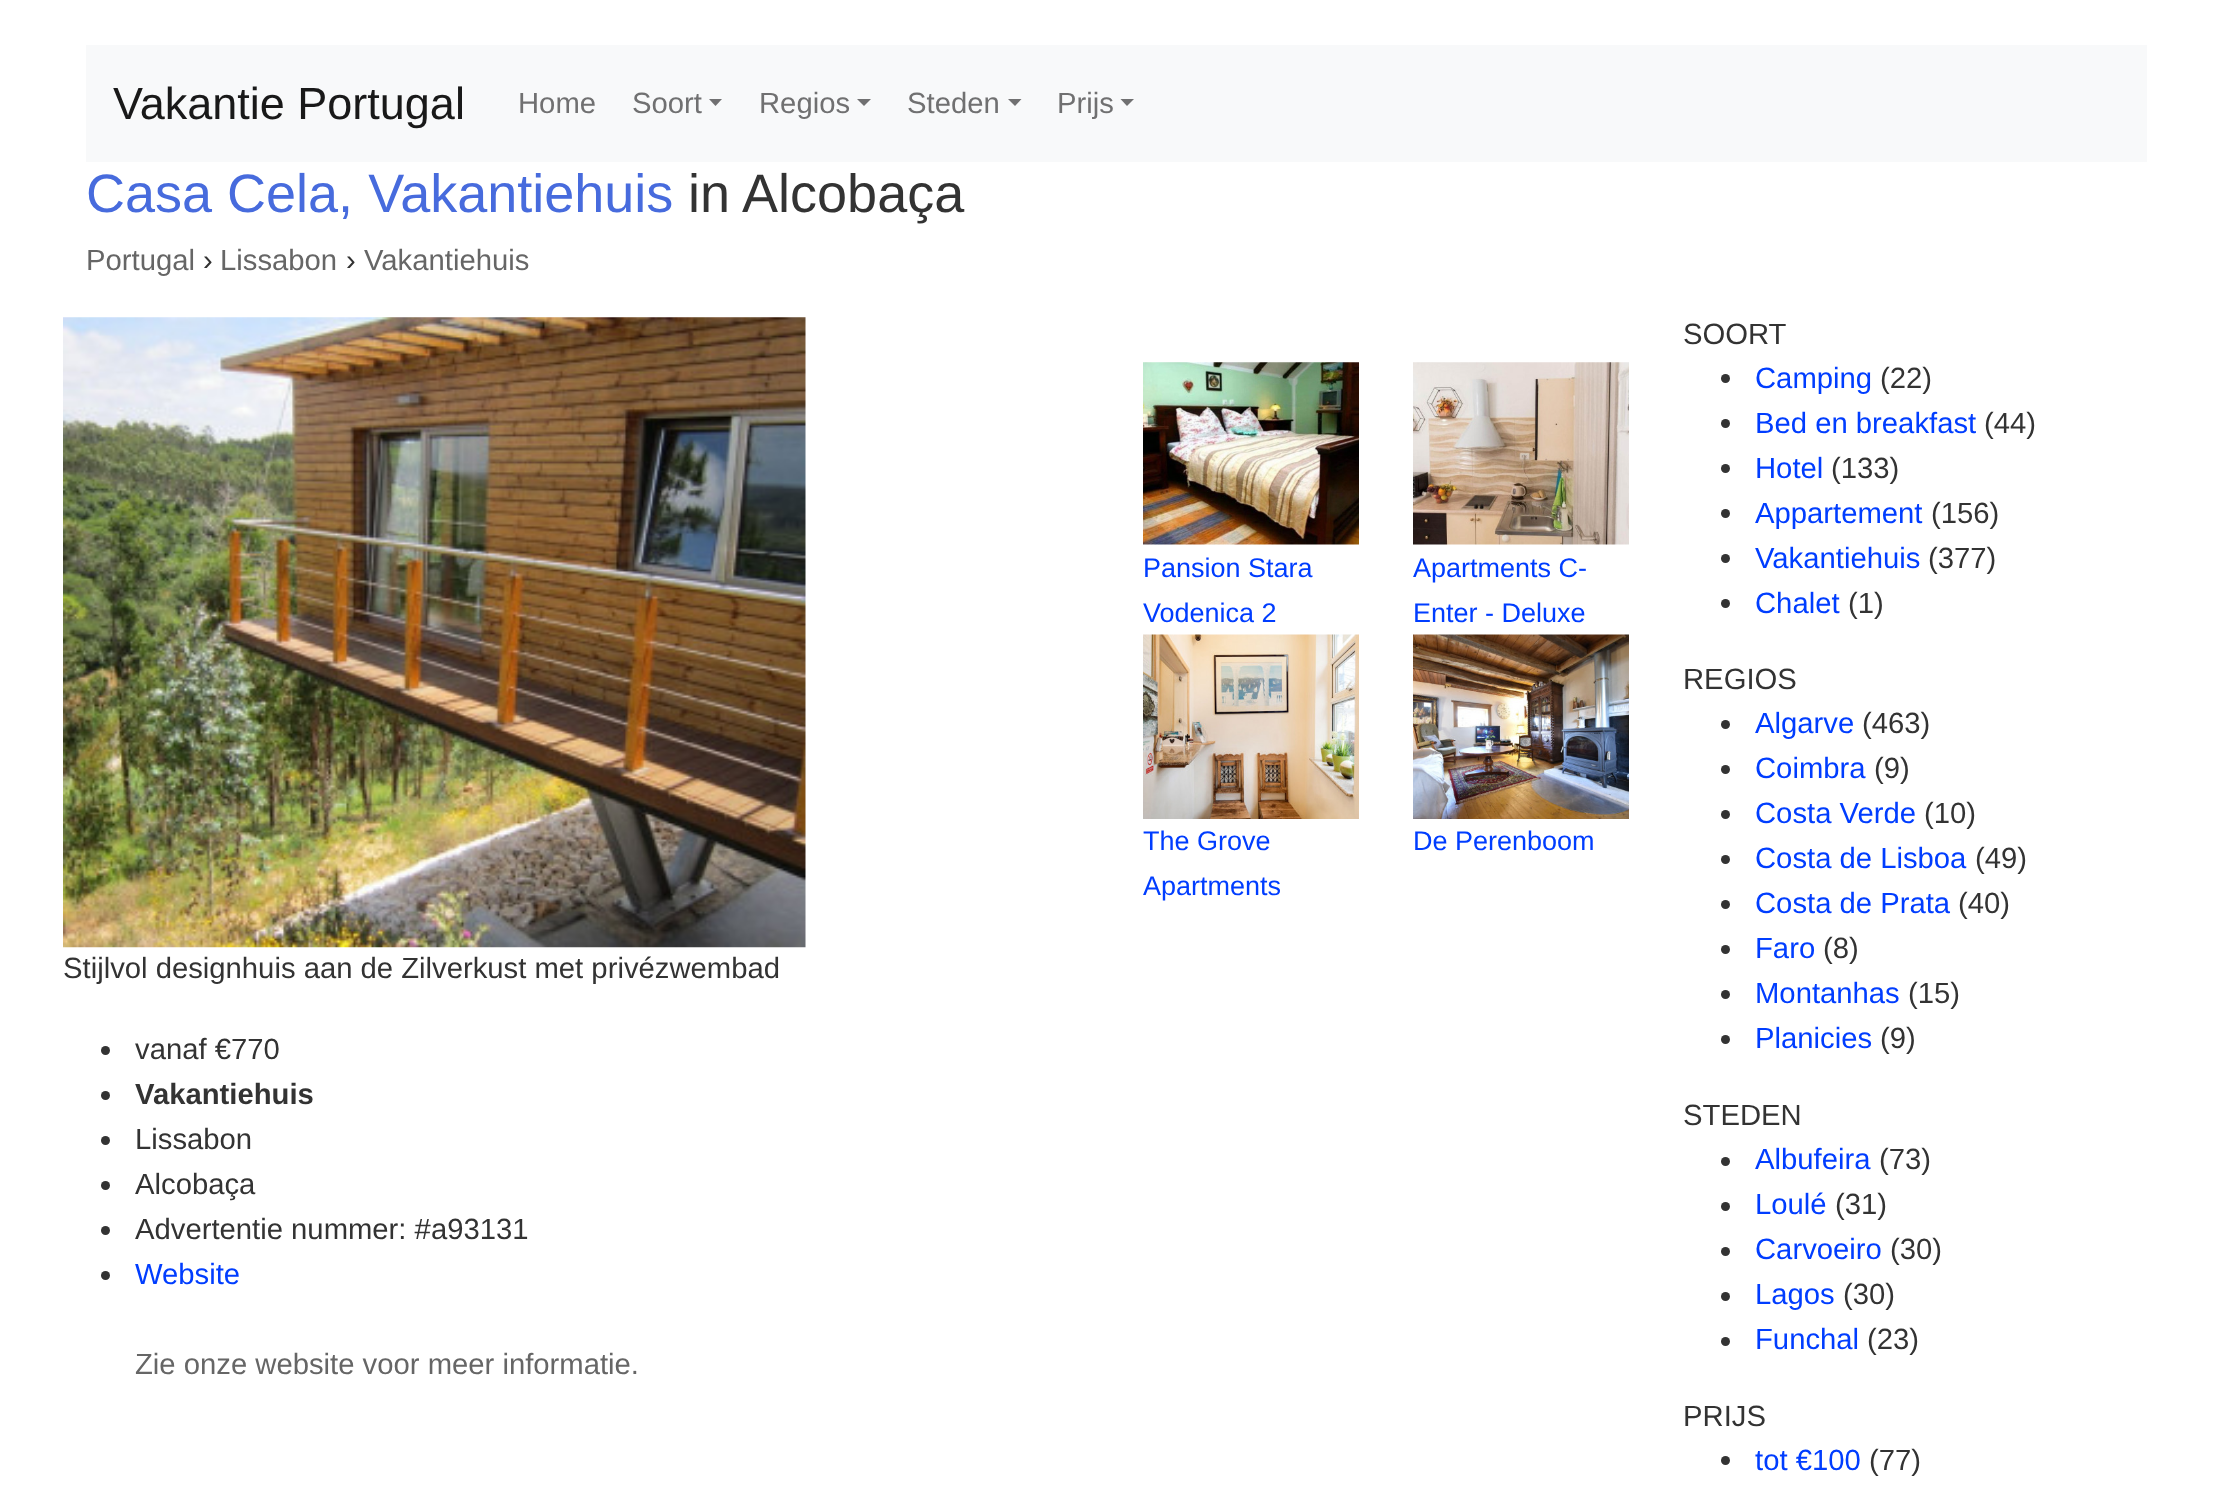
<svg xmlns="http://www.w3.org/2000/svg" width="2231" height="1499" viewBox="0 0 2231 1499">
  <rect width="100%" height="100%" fill="#fff"/>
  <path d="M86 45h2061v117H86z" fill="#f8f9fa"/>
  <path d="M709 99H722L715.5 106Z" fill="#707071"/>
  <path d="M857 99H871L864 106Z" fill="#707071"/>
  <path d="M1008 99H1021.5L1015 106Z" fill="#707071"/>
  <path d="M1120.5 99H1134L1127 106Z" fill="#707071"/>
  <image x="1143" y="362" width="216" height="183" href="img/1.png"/>
  <image x="1413" y="362" width="216" height="183" href="img/2.png"/>
  <image x="1143" y="634" width="216" height="185" href="img/3.png"/>
  <image x="1413" y="634" width="216" height="185" href="img/4.png"/>
  <image x="63" y="317" width="743" height="631" href="img/5.png"/>
  <circle cx="105.5" cy="1050.5" r="4.5" fill="#333"/>
  <circle cx="105.5" cy="1095.5" r="4.5" fill="#333"/>
  <circle cx="105.5" cy="1140.5" r="4.5" fill="#333"/>
  <circle cx="105.5" cy="1185.5" r="4.5" fill="#333"/>
  <circle cx="105.5" cy="1230.5" r="4.5" fill="#333"/>
  <circle cx="105.5" cy="1275.5" r="4.5" fill="#333"/>
  <circle cx="1725.5" cy="378.5" r="4.5" fill="#333"/>
  <circle cx="1725.5" cy="423.5" r="4.5" fill="#333"/>
  <circle cx="1725.5" cy="468.5" r="4.5" fill="#333"/>
  <circle cx="1725.5" cy="513.5" r="4.5" fill="#333"/>
  <circle cx="1725.5" cy="558.5" r="4.5" fill="#333"/>
  <circle cx="1725.5" cy="603.5" r="4.5" fill="#333"/>
  <circle cx="1725.5" cy="724.5" r="4.5" fill="#333"/>
  <circle cx="1725.5" cy="769.5" r="4.5" fill="#333"/>
  <circle cx="1725.5" cy="814.5" r="4.5" fill="#333"/>
  <circle cx="1725.5" cy="859.5" r="4.5" fill="#333"/>
  <circle cx="1725.5" cy="904.5" r="4.5" fill="#333"/>
  <circle cx="1725.5" cy="949.5" r="4.5" fill="#333"/>
  <circle cx="1725.5" cy="994.5" r="4.5" fill="#333"/>
  <circle cx="1725.5" cy="1039.5" r="4.5" fill="#333"/>
  <circle cx="1725.5" cy="1161.5" r="4.5" fill="#333"/>
  <circle cx="1725.5" cy="1206.5" r="4.5" fill="#333"/>
  <circle cx="1725.5" cy="1251.5" r="4.5" fill="#333"/>
  <circle cx="1725.5" cy="1296.5" r="4.5" fill="#333"/>
  <circle cx="1725.5" cy="1341.5" r="4.5" fill="#333"/>
  <circle cx="1725.5" cy="1460.5" r="4.5" fill="#333"/>
  <text x="113" y="119" font-family="Liberation Sans" font-size="45" fill="#191919">Vakantie Portugal</text>
  <g font-family="Liberation Sans" font-size="29.25" fill="#707071">
    <text x="518" y="113">Home</text>
    <text x="632" y="113">Soort</text>
    <text x="759" y="113">Regios</text>
    <text x="907" y="113">Steden</text>
    <text x="1057" y="113">Prijs</text>
  </g>
  <text x="86" y="212" font-family="Liberation Sans" font-size="54" fill="#476bdd">Casa Cela, Vakantiehuis</text>
  <text x="688" y="212" font-family="Liberation Sans" font-size="54" fill="#333">in Alcobaça</text>
  <text x="86" y="270" font-family="Liberation Sans" font-size="29.25" fill="#666">Portugal</text>
  <text x="203" y="270" font-family="Liberation Sans" font-size="29.25" fill="#333">›</text>
  <text x="220" y="270" font-family="Liberation Sans" font-size="29.25" fill="#666">Lissabon</text>
  <text x="346" y="270" font-family="Liberation Sans" font-size="29.25" fill="#333">›</text>
  <text x="364" y="270" font-family="Liberation Sans" font-size="29.25" fill="#666">Vakantiehuis</text>
  <g font-family="Liberation Sans" font-size="27" fill="#003dff">
    <text x="1143" y="577">Pansion Stara</text>
    <text x="1143" y="622">Vodenica 2</text>
    <text x="1413" y="577">Apartments C-</text>
    <text x="1413" y="622">Enter - Deluxe</text>
    <text x="1143" y="850">The Grove</text>
    <text x="1143" y="895">Apartments</text>
    <text x="1413" y="850">De Perenboom</text>
  </g>
  <g font-family="Liberation Sans" font-size="29.25" fill="#333">
    <text x="63" y="978">Stijlvol designhuis aan de Zilverkust met privézwembad</text>
    <text x="135" y="1059">vanaf €770</text>
  </g>
  <text x="135" y="1104" font-family="Liberation Sans" font-size="29.25" font-weight="bold" fill="#333">Vakantiehuis</text>
  <g font-family="Liberation Sans" font-size="29.25" fill="#333">
    <text x="135" y="1149">Lissabon</text>
    <text x="135" y="1194">Alcobaça</text>
    <text x="135" y="1239">Advertentie nummer: #a93131</text>
  </g>
  <text x="135" y="1284" font-family="Liberation Sans" font-size="29.25" fill="#003dff">Website</text>
  <text x="135" y="1374" font-family="Liberation Sans" font-size="29.25" fill="#666">Zie onze website voor meer informatie.</text>
  <text x="1683" y="344" font-family="Liberation Sans" font-size="29.25" fill="#333">SOORT</text>
  <text x="1755" y="388" font-family="Liberation Sans" font-size="29.25" fill="#003dff">Camping</text>
  <text x="1880" y="388" font-family="Liberation Sans" font-size="29.25" fill="#333">(22)</text>
  <text x="1755" y="433" font-family="Liberation Sans" font-size="29.25" fill="#003dff">Bed en breakfast</text>
  <text x="1984" y="433" font-family="Liberation Sans" font-size="29.25" fill="#333">(44)</text>
  <text x="1755" y="478" font-family="Liberation Sans" font-size="29.25" fill="#003dff">Hotel</text>
  <text x="1831" y="478" font-family="Liberation Sans" font-size="29.25" fill="#333">(133)</text>
  <text x="1755" y="523" font-family="Liberation Sans" font-size="29.25" fill="#003dff">Appartement</text>
  <text x="1931" y="523" font-family="Liberation Sans" font-size="29.25" fill="#333">(156)</text>
  <text x="1755" y="568" font-family="Liberation Sans" font-size="29.25" fill="#003dff">Vakantiehuis</text>
  <text x="1928" y="568" font-family="Liberation Sans" font-size="29.25" fill="#333">(377)</text>
  <text x="1755" y="613" font-family="Liberation Sans" font-size="29.25" fill="#003dff">Chalet</text>
  <g font-family="Liberation Sans" font-size="29.25" fill="#333">
    <text x="1848" y="613">(1)</text>
    <text x="1683" y="689">REGIOS</text>
  </g>
  <text x="1755" y="733" font-family="Liberation Sans" font-size="29.25" fill="#003dff">Algarve</text>
  <text x="1862" y="733" font-family="Liberation Sans" font-size="29.25" fill="#333">(463)</text>
  <text x="1755" y="778" font-family="Liberation Sans" font-size="29.25" fill="#003dff">Coimbra</text>
  <text x="1874" y="778" font-family="Liberation Sans" font-size="29.25" fill="#333">(9)</text>
  <text x="1755" y="823" font-family="Liberation Sans" font-size="29.25" fill="#003dff">Costa Verde</text>
  <text x="1924" y="823" font-family="Liberation Sans" font-size="29.25" fill="#333">(10)</text>
  <text x="1755" y="868" font-family="Liberation Sans" font-size="29.25" fill="#003dff">Costa de Lisboa</text>
  <text x="1975" y="868" font-family="Liberation Sans" font-size="29.25" fill="#333">(49)</text>
  <text x="1755" y="913" font-family="Liberation Sans" font-size="29.25" fill="#003dff">Costa de Prata</text>
  <text x="1958" y="913" font-family="Liberation Sans" font-size="29.25" fill="#333">(40)</text>
  <text x="1755" y="958" font-family="Liberation Sans" font-size="29.25" fill="#003dff">Faro</text>
  <text x="1823" y="958" font-family="Liberation Sans" font-size="29.25" fill="#333">(8)</text>
  <text x="1755" y="1003" font-family="Liberation Sans" font-size="29.25" fill="#003dff">Montanhas</text>
  <text x="1908" y="1003" font-family="Liberation Sans" font-size="29.25" fill="#333">(15)</text>
  <text x="1755" y="1048" font-family="Liberation Sans" font-size="29.25" fill="#003dff">Planicies</text>
  <g font-family="Liberation Sans" font-size="29.25" fill="#333">
    <text x="1880" y="1048">(9)</text>
    <text x="1683" y="1125">STEDEN</text>
  </g>
  <text x="1755" y="1169" font-family="Liberation Sans" font-size="29.25" fill="#003dff">Albufeira</text>
  <text x="1879" y="1169" font-family="Liberation Sans" font-size="29.25" fill="#333">(73)</text>
  <text x="1755" y="1214" font-family="Liberation Sans" font-size="29.25" fill="#003dff">Loulé</text>
  <text x="1835" y="1214" font-family="Liberation Sans" font-size="29.25" fill="#333">(31)</text>
  <text x="1755" y="1259" font-family="Liberation Sans" font-size="29.25" fill="#003dff">Carvoeiro</text>
  <text x="1890" y="1259" font-family="Liberation Sans" font-size="29.25" fill="#333">(30)</text>
  <text x="1755" y="1304" font-family="Liberation Sans" font-size="29.25" fill="#003dff">Lagos</text>
  <text x="1843" y="1304" font-family="Liberation Sans" font-size="29.25" fill="#333">(30)</text>
  <text x="1755" y="1349" font-family="Liberation Sans" font-size="29.25" fill="#003dff">Funchal</text>
  <g font-family="Liberation Sans" font-size="29.25" fill="#333">
    <text x="1867" y="1349">(23)</text>
    <text x="1683" y="1426">PRIJS</text>
  </g>
  <text x="1755" y="1470" font-family="Liberation Sans" font-size="29.25" fill="#003dff">tot €100</text>
  <text x="1869" y="1470" font-family="Liberation Sans" font-size="29.25" fill="#333">(77)</text>
</svg>
